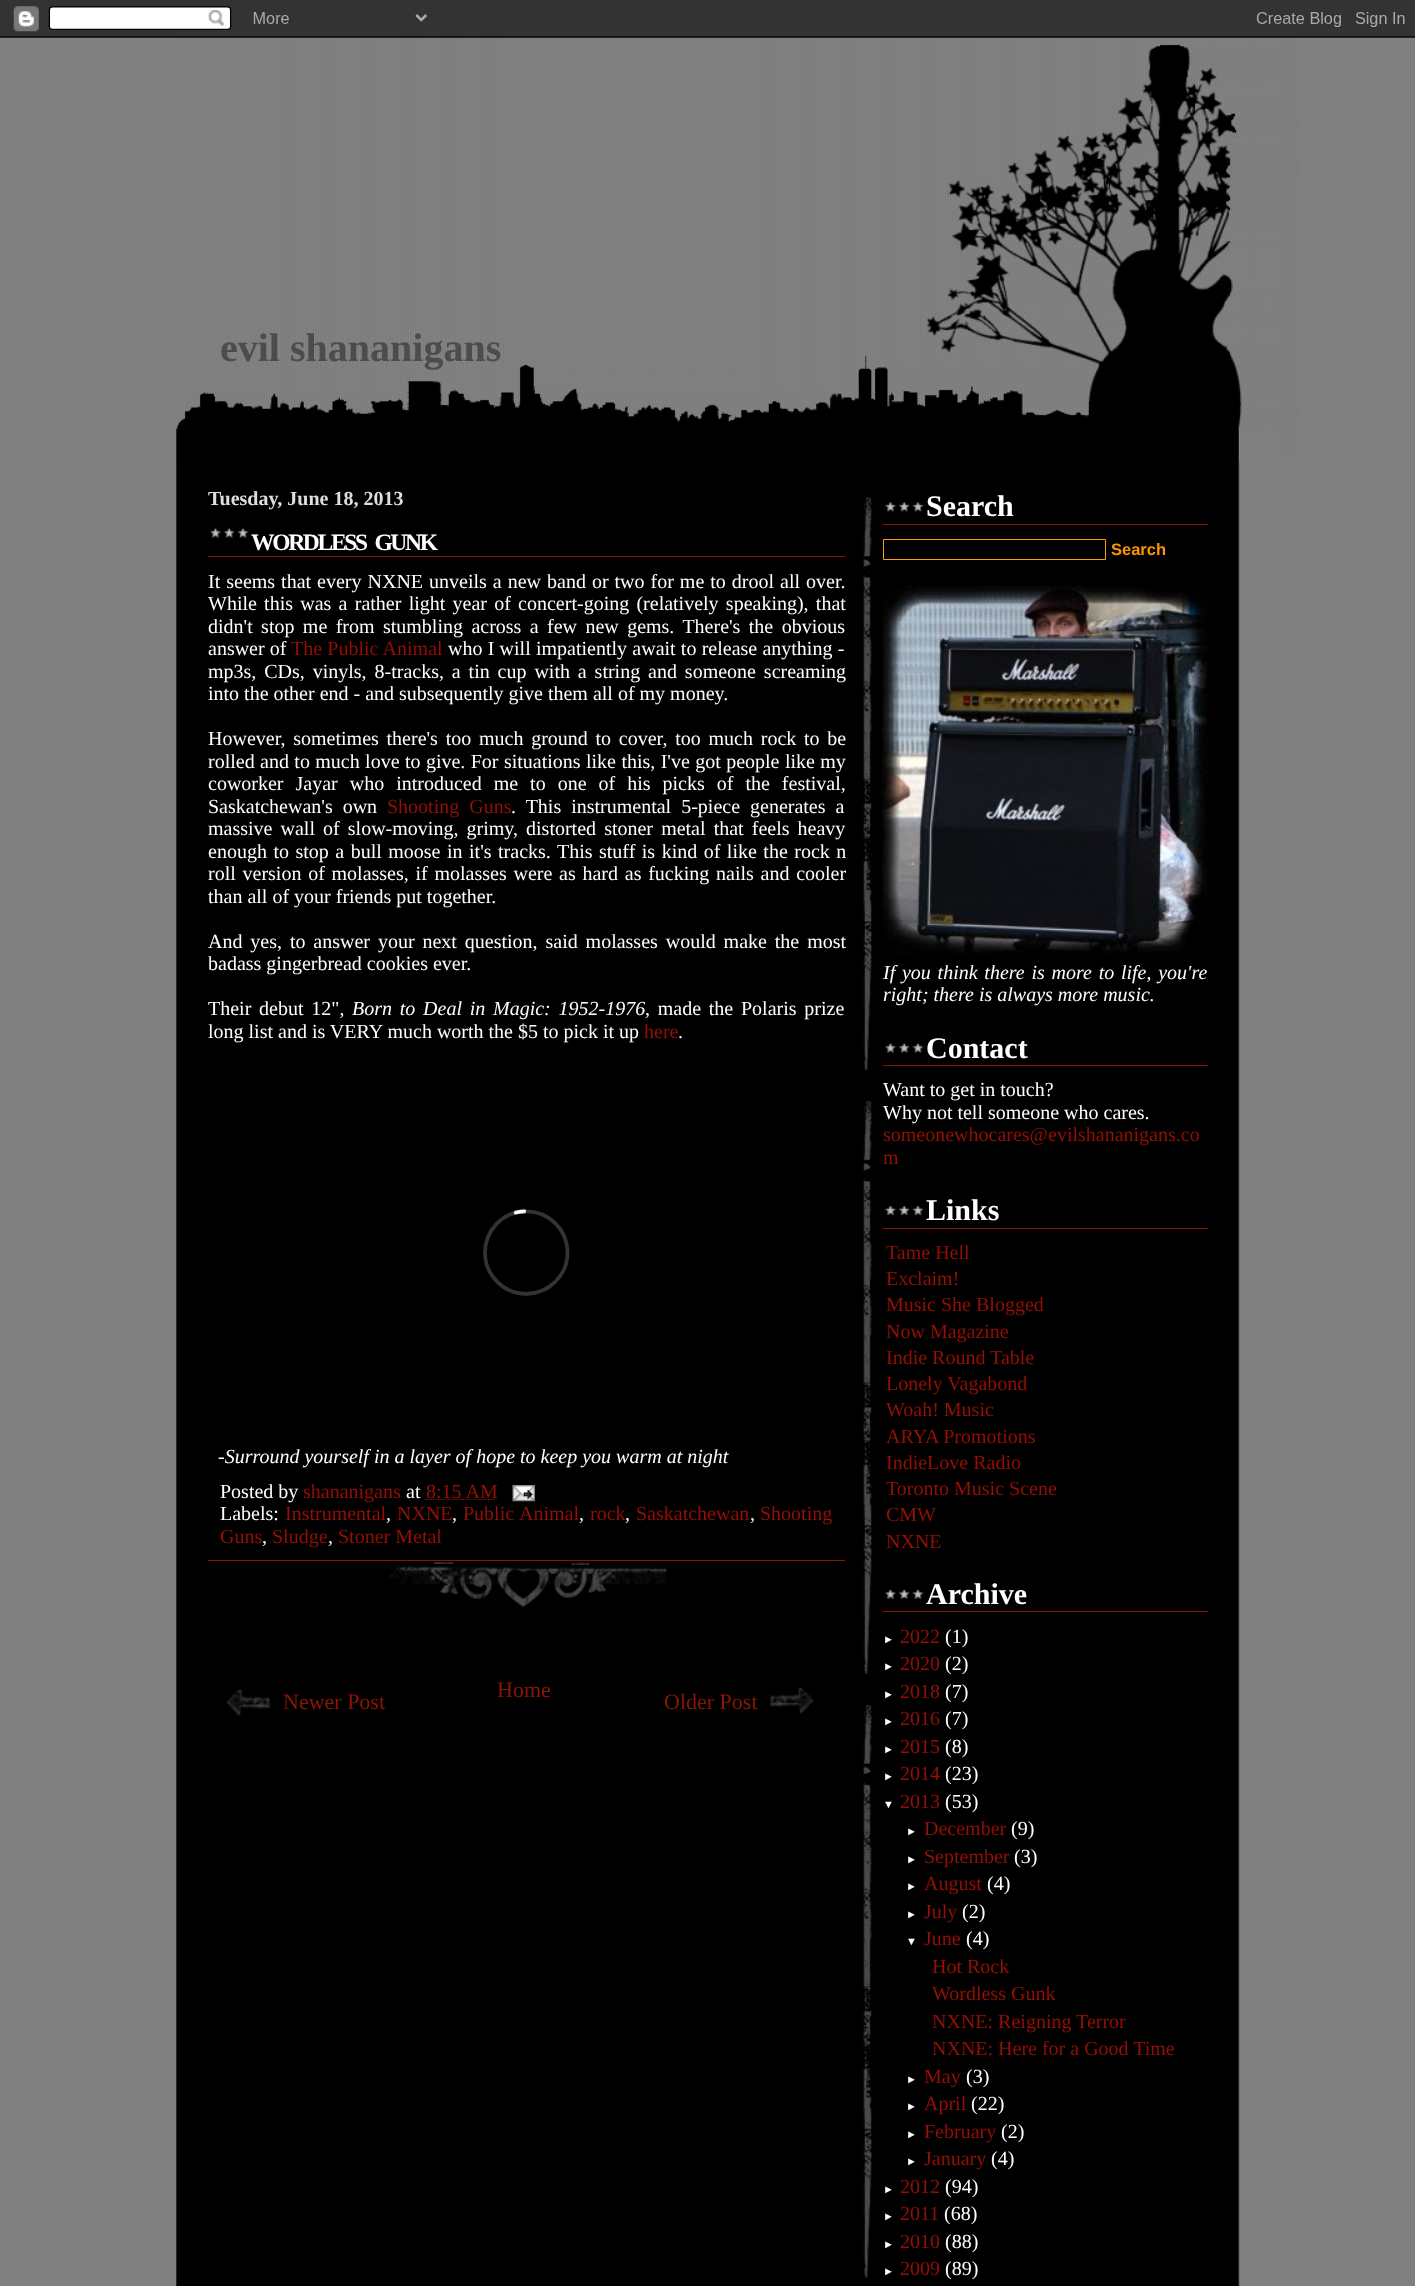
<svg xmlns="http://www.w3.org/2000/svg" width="1415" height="2286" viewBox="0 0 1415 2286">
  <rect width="100%" height="100%" fill="#808080"/>
  <image x="176" y="36" width="1064" height="2250" href="img/1.png"/>
  <image x="0" y="0" width="1415" height="38" href="img/2.png"/>
  <image x="176" y="38" width="1124" height="425" href="img/3.png"/>
  <image x="389" y="1561" width="278" height="47" href="img/4.png"/>
  <image x="210" y="528" width="39" height="11" href="img/5.png"/>
  <path d="M208 556h637v1H208z" fill="#8c1601"/>
  <image x="483" y="1208" width="87" height="88" href="img/6.png"/>
  <path d="M208 1560h637v1H208z" fill="#8c1601"/>
  <path d="M425.5 1499.5H497.5" fill="none" stroke="#940f04" stroke-width="1.2" stroke-dasharray="1.25 1.25"/>
  <image x="512" y="1485" width="23" height="17" href="img/7.png"/>
  <image x="226" y="1689" width="45" height="27" href="img/8.png"/>
  <image x="770" y="1687" width="44" height="27" href="img/9.png"/>
  <image x="863" y="497" width="9" height="1781" href="img/10.png"/>
  <image x="885" y="502" width="39" height="10" href="img/11.png"/>
  <path d="M883 524h325v1H883z" fill="#8c1601"/>
  <path d="M883.5 539.5h222v20H883.5z" fill="none" stroke="#fca000"/>
  <image x="882" y="585" width="326" height="370" href="img/12.png"/>
  <image x="885" y="1043" width="39" height="11" href="img/5.png"/>
  <path d="M883 1065h325v1H883z" fill="#8c1601"/>
  <image x="885" y="1206" width="39" height="10" href="img/13.png"/>
  <path d="M883 1228h325v1H883z" fill="#8c1601"/>
  <image x="885" y="1590" width="39" height="10" href="img/14.png"/>
  <path d="M883 1611h325v1H883z" fill="#8c1601"/>
  <text x="220" y="361" font-family="Liberation Serif" font-size="40" font-weight="bold" fill="#4c4c4c">evil shananigans</text>
  <text x="208" y="505" font-family="Liberation Serif" font-size="20" font-weight="bold" fill="#dedede">Tuesday, June 18, 2013</text>
  <text x="251" y="550" word-spacing="5" font-family="Liberation Serif" font-size="23.5" font-weight="bold" letter-spacing="-2.3" fill="#fff">WORDLESS GUNK</text>
  <g font-family="Liberation Serif" font-size="20" fill="#fff">
    <text x="208" y="588" word-spacing="1">It seems that every NXNE unveils a new band or two for me to drool all over.</text>
    <text x="208" y="610" word-spacing="2.25">While this was a rather light year of concert-going (relatively speaking), that</text>
    <text x="208" y="633" word-spacing="3.4">didn't stop me from stumbling across a few new gems. There's the obvious</text>
    <text x="208" y="655">answer of</text>
  </g>
  <text x="291" y="655" word-spacing="0.25" font-family="Liberation Serif" font-size="20" fill="#940f04">The Public Animal</text>
  <g font-family="Liberation Serif" font-size="20" fill="#fff">
    <text x="448" y="655" word-spacing="0.25">who I will impatiently await to release anything -</text>
    <text x="208" y="678" word-spacing="2.9">mp3s, CDs, vinyls, 8-tracks, a tin cup with a string and someone screaming</text>
    <text x="208" y="700">into the other end - and subsequently give them all of my money.</text>
    <text x="208" y="745" word-spacing="2.75">However, sometimes there's too much ground to cover, too much rock to be</text>
    <text x="208" y="768" word-spacing="0.4">rolled and to much love to give. For situations like this, I've got people like my</text>
    <text x="208" y="790" word-spacing="7">coworker Jayar who introduced me to one of his picks of the festival,</text>
    <text x="208" y="813" word-spacing="5">Saskatchewan's own</text>
  </g>
  <text x="387" y="813" word-spacing="5" font-family="Liberation Serif" font-size="20" fill="#940f04">Shooting Guns</text>
  <g font-family="Liberation Serif" font-size="20" fill="#fff">
    <text x="511" y="813" word-spacing="5">. This instrumental 5-piece generates a</text>
    <text x="208" y="835" word-spacing="3.1">massive wall of slow-moving, grimy, distorted stoner metal that feels heavy</text>
    <text x="208" y="858" word-spacing="1.5">enough to stop a bull moose in it's tracks. This stuff is kind of like the rock n</text>
    <text x="208" y="880" word-spacing="1.75">roll version of molasses, if molasses were as hard as fucking nails and cooler</text>
    <text x="208" y="903">than all of your friends put together.</text>
    <text x="208" y="948" word-spacing="2.9">And yes, to answer your next question, said molasses would make the most</text>
    <text x="208" y="970">badass gingerbread cookies ever.</text>
    <text x="208" y="1015" word-spacing="2.75">Their debut 12",</text>
  </g>
  <text x="352" y="1015" word-spacing="2.75" font-family="Liberation Serif" font-size="20" font-style="italic" fill="#fff">Born to Deal in Magic: 1952-1976</text>
  <g font-family="Liberation Serif" font-size="20" fill="#fff">
    <text x="645" y="1015" word-spacing="2.75">, made the Polaris prize</text>
    <text x="208" y="1038">long list and is VERY much worth the $5 to pick it up</text>
  </g>
  <text x="644" y="1038" font-family="Liberation Serif" font-size="20" fill="#940f04">here</text>
  <text x="678" y="1038" font-family="Liberation Serif" font-size="20" fill="#fff">.</text>
  <text x="218" y="1463" font-family="Liberation Serif" font-size="20" font-style="italic" fill="#fff">-Surround yourself in a layer of hope to keep you warm at night</text>
  <text x="220" y="1498" font-family="Liberation Serif" font-size="20" fill="#fff">Posted by</text>
  <text x="303" y="1498" font-family="Liberation Serif" font-size="20" fill="#940f04">shananigans</text>
  <text x="406" y="1498" font-family="Liberation Serif" font-size="20" fill="#fff">at</text>
  <text x="426" y="1498" font-family="Liberation Serif" font-size="20" fill="#940f04">8:15 AM</text>
  <text x="220" y="1520" font-family="Liberation Serif" font-size="20" fill="#fff">Labels:</text>
  <text x="285" y="1520" font-family="Liberation Serif" font-size="20" fill="#940f04">Instrumental</text>
  <text x="386" y="1520" font-family="Liberation Serif" font-size="20" fill="#fff">,</text>
  <text x="397" y="1520" font-family="Liberation Serif" font-size="20" fill="#940f04">NXNE</text>
  <text x="452" y="1520" font-family="Liberation Serif" font-size="20" fill="#fff">,</text>
  <text x="463" y="1520" word-spacing="1" font-family="Liberation Serif" font-size="20" fill="#940f04">Public Animal</text>
  <text x="579" y="1520" font-family="Liberation Serif" font-size="20" fill="#fff">,</text>
  <text x="590" y="1520" font-family="Liberation Serif" font-size="20" fill="#940f04">rock</text>
  <text x="625" y="1520" font-family="Liberation Serif" font-size="20" fill="#fff">,</text>
  <text x="636" y="1520" font-family="Liberation Serif" font-size="20" fill="#940f04">Saskatchewan</text>
  <text x="750" y="1520" font-family="Liberation Serif" font-size="20" fill="#fff">,</text>
  <g font-family="Liberation Serif" font-size="20" fill="#940f04">
    <text x="760" y="1520">Shooting</text>
    <text x="220" y="1543">Guns</text>
  </g>
  <text x="262" y="1543" font-family="Liberation Serif" font-size="20" fill="#fff">,</text>
  <text x="272" y="1543" font-family="Liberation Serif" font-size="20" fill="#940f04">Sludge</text>
  <text x="328" y="1543" font-family="Liberation Serif" font-size="20" fill="#fff">,</text>
  <text x="338" y="1543" font-family="Liberation Serif" font-size="20" fill="#940f04">Stoner Metal</text>
  <g font-family="Liberation Serif" font-size="22" fill="#8c1601">
    <text x="497" y="1697">Home</text>
    <text x="283" y="1709">Newer Post</text>
    <text x="664" y="1709">Older Post</text>
  </g>
  <text x="926" y="516" font-family="Liberation Serif" font-size="30" font-weight="bold" fill="#fff">Search</text>
  <text x="1111" y="555" font-family="Liberation Sans" font-size="16.5" font-weight="bold" fill="#fe9500">Search</text>
  <g font-family="Liberation Serif" font-size="20" font-style="italic" fill="#fff">
    <text x="883" y="979" word-spacing="1.75">If you think there is more to life, you're</text>
    <text x="883" y="1001">right; there is always more music.</text>
  </g>
  <text x="926" y="1058" font-family="Liberation Serif" font-size="30" font-weight="bold" fill="#fff">Contact</text>
  <g font-family="Liberation Serif" font-size="20" fill="#fff">
    <text x="883" y="1096">Want to get in touch?</text>
    <text x="883" y="1119">Why not tell someone who cares.</text>
  </g>
  <g font-family="Liberation Serif" font-size="20" fill="#940f04">
    <text x="883" y="1141">someonewhocares@evilshananigans.co</text>
    <text x="883" y="1164">m</text>
  </g>
  <text x="926" y="1220" font-family="Liberation Serif" font-size="30" font-weight="bold" fill="#fff">Links</text>
  <g font-family="Liberation Serif" font-size="20" fill="#940f04">
    <text x="886" y="1259">Tame Hell</text>
    <text x="886" y="1285">Exclaim!</text>
    <text x="886" y="1311">Music She Blogged</text>
    <text x="886" y="1338">Now Magazine</text>
    <text x="886" y="1364">Indie Round Table</text>
    <text x="886" y="1390">Lonely Vagabond</text>
    <text x="886" y="1416">Woah! Music</text>
    <text x="886" y="1443">ARYA Promotions</text>
    <text x="886" y="1469">IndieLove Radio</text>
    <text x="886" y="1495">Toronto Music Scene</text>
    <text x="886" y="1521">CMW</text>
    <text x="886" y="1548">NXNE</text>
  </g>
  <text x="926" y="1604" font-family="Liberation Serif" font-size="30" font-weight="bold" fill="#fff">Archive</text>
  <text x="883" y="1643" font-family="Liberation Sans" font-size="11" fill="#fff">►</text>
  <text x="900" y="1643" font-family="Liberation Serif" font-size="20" fill="#940f04">2022</text>
  <text x="945" y="1643" font-family="Liberation Serif" font-size="20" fill="#fff">(1)</text>
  <text x="883" y="1670" font-family="Liberation Sans" font-size="11" fill="#fff">►</text>
  <text x="900" y="1670" font-family="Liberation Serif" font-size="20" fill="#940f04">2020</text>
  <text x="945" y="1670" font-family="Liberation Serif" font-size="20" fill="#fff">(2)</text>
  <text x="883" y="1698" font-family="Liberation Sans" font-size="11" fill="#fff">►</text>
  <text x="900" y="1698" font-family="Liberation Serif" font-size="20" fill="#940f04">2018</text>
  <text x="945" y="1698" font-family="Liberation Serif" font-size="20" fill="#fff">(7)</text>
  <text x="883" y="1725" font-family="Liberation Sans" font-size="11" fill="#fff">►</text>
  <text x="900" y="1725" font-family="Liberation Serif" font-size="20" fill="#940f04">2016</text>
  <text x="945" y="1725" font-family="Liberation Serif" font-size="20" fill="#fff">(7)</text>
  <text x="883" y="1753" font-family="Liberation Sans" font-size="11" fill="#fff">►</text>
  <text x="900" y="1753" font-family="Liberation Serif" font-size="20" fill="#940f04">2015</text>
  <text x="945" y="1753" font-family="Liberation Serif" font-size="20" fill="#fff">(8)</text>
  <text x="883" y="1780" font-family="Liberation Sans" font-size="11" fill="#fff">►</text>
  <text x="900" y="1780" font-family="Liberation Serif" font-size="20" fill="#940f04">2014</text>
  <text x="945" y="1780" font-family="Liberation Serif" font-size="20" fill="#fff">(23)</text>
  <text x="883" y="1808" font-family="Liberation Sans" font-size="11" fill="#fff">▼</text>
  <text x="900" y="1808" font-family="Liberation Serif" font-size="20" fill="#940f04">2013</text>
  <text x="945" y="1808" font-family="Liberation Serif" font-size="20" fill="#fff">(53)</text>
  <text x="906" y="1835" font-family="Liberation Sans" font-size="11" fill="#fff">►</text>
  <text x="924" y="1835" font-family="Liberation Serif" font-size="20" fill="#940f04">December</text>
  <text x="1011" y="1835" font-family="Liberation Serif" font-size="20" fill="#fff">(9)</text>
  <text x="906" y="1863" font-family="Liberation Sans" font-size="11" fill="#fff">►</text>
  <text x="924" y="1863" font-family="Liberation Serif" font-size="20" fill="#940f04">September</text>
  <text x="1014" y="1863" font-family="Liberation Serif" font-size="20" fill="#fff">(3)</text>
  <text x="906" y="1890" font-family="Liberation Sans" font-size="11" fill="#fff">►</text>
  <text x="924" y="1890" font-family="Liberation Serif" font-size="20" fill="#940f04">August</text>
  <text x="987" y="1890" font-family="Liberation Serif" font-size="20" fill="#fff">(4)</text>
  <text x="906" y="1918" font-family="Liberation Sans" font-size="11" fill="#fff">►</text>
  <text x="924" y="1918" font-family="Liberation Serif" font-size="20" fill="#940f04">July</text>
  <text x="962" y="1918" font-family="Liberation Serif" font-size="20" fill="#fff">(2)</text>
  <text x="906" y="1945" font-family="Liberation Sans" font-size="11" fill="#fff">▼</text>
  <text x="924" y="1945" font-family="Liberation Serif" font-size="20" fill="#940f04">June</text>
  <text x="966" y="1945" font-family="Liberation Serif" font-size="20" fill="#fff">(4)</text>
  <g font-family="Liberation Serif" font-size="20" fill="#940f04">
    <text x="932" y="1973">Hot Rock</text>
    <text x="932" y="2000">Wordless Gunk</text>
    <text x="932" y="2028">NXNE: Reigning Terror</text>
    <text x="932" y="2055">NXNE: Here for a Good Time</text>
  </g>
  <text x="906" y="2083" font-family="Liberation Sans" font-size="11" fill="#fff">►</text>
  <text x="924" y="2083" font-family="Liberation Serif" font-size="20" fill="#940f04">May</text>
  <text x="966" y="2083" font-family="Liberation Serif" font-size="20" fill="#fff">(3)</text>
  <text x="906" y="2110" font-family="Liberation Sans" font-size="11" fill="#fff">►</text>
  <text x="924" y="2110" font-family="Liberation Serif" font-size="20" fill="#940f04">April</text>
  <text x="971" y="2110" font-family="Liberation Serif" font-size="20" fill="#fff">(22)</text>
  <text x="906" y="2138" font-family="Liberation Sans" font-size="11" fill="#fff">►</text>
  <text x="924" y="2138" font-family="Liberation Serif" font-size="20" fill="#940f04">February</text>
  <text x="1001" y="2138" font-family="Liberation Serif" font-size="20" fill="#fff">(2)</text>
  <text x="906" y="2165" font-family="Liberation Sans" font-size="11" fill="#fff">►</text>
  <text x="924" y="2165" font-family="Liberation Serif" font-size="20" fill="#940f04">January</text>
  <text x="991" y="2165" font-family="Liberation Serif" font-size="20" fill="#fff">(4)</text>
  <text x="883" y="2193" font-family="Liberation Sans" font-size="11" fill="#fff">►</text>
  <text x="900" y="2193" font-family="Liberation Serif" font-size="20" fill="#940f04">2012</text>
  <text x="945" y="2193" font-family="Liberation Serif" font-size="20" fill="#fff">(94)</text>
  <text x="883" y="2220" font-family="Liberation Sans" font-size="11" fill="#fff">►</text>
  <text x="900" y="2220" font-family="Liberation Serif" font-size="20" fill="#940f04">2011</text>
  <text x="944" y="2220" font-family="Liberation Serif" font-size="20" fill="#fff">(68)</text>
  <text x="883" y="2248" font-family="Liberation Sans" font-size="11" fill="#fff">►</text>
  <text x="900" y="2248" font-family="Liberation Serif" font-size="20" fill="#940f04">2010</text>
  <text x="945" y="2248" font-family="Liberation Serif" font-size="20" fill="#fff">(88)</text>
  <text x="883" y="2275" font-family="Liberation Sans" font-size="11" fill="#fff">►</text>
  <text x="900" y="2275" font-family="Liberation Serif" font-size="20" fill="#940f04">2009</text>
  <text x="945" y="2275" font-family="Liberation Serif" font-size="20" fill="#fff">(89)</text>
</svg>
